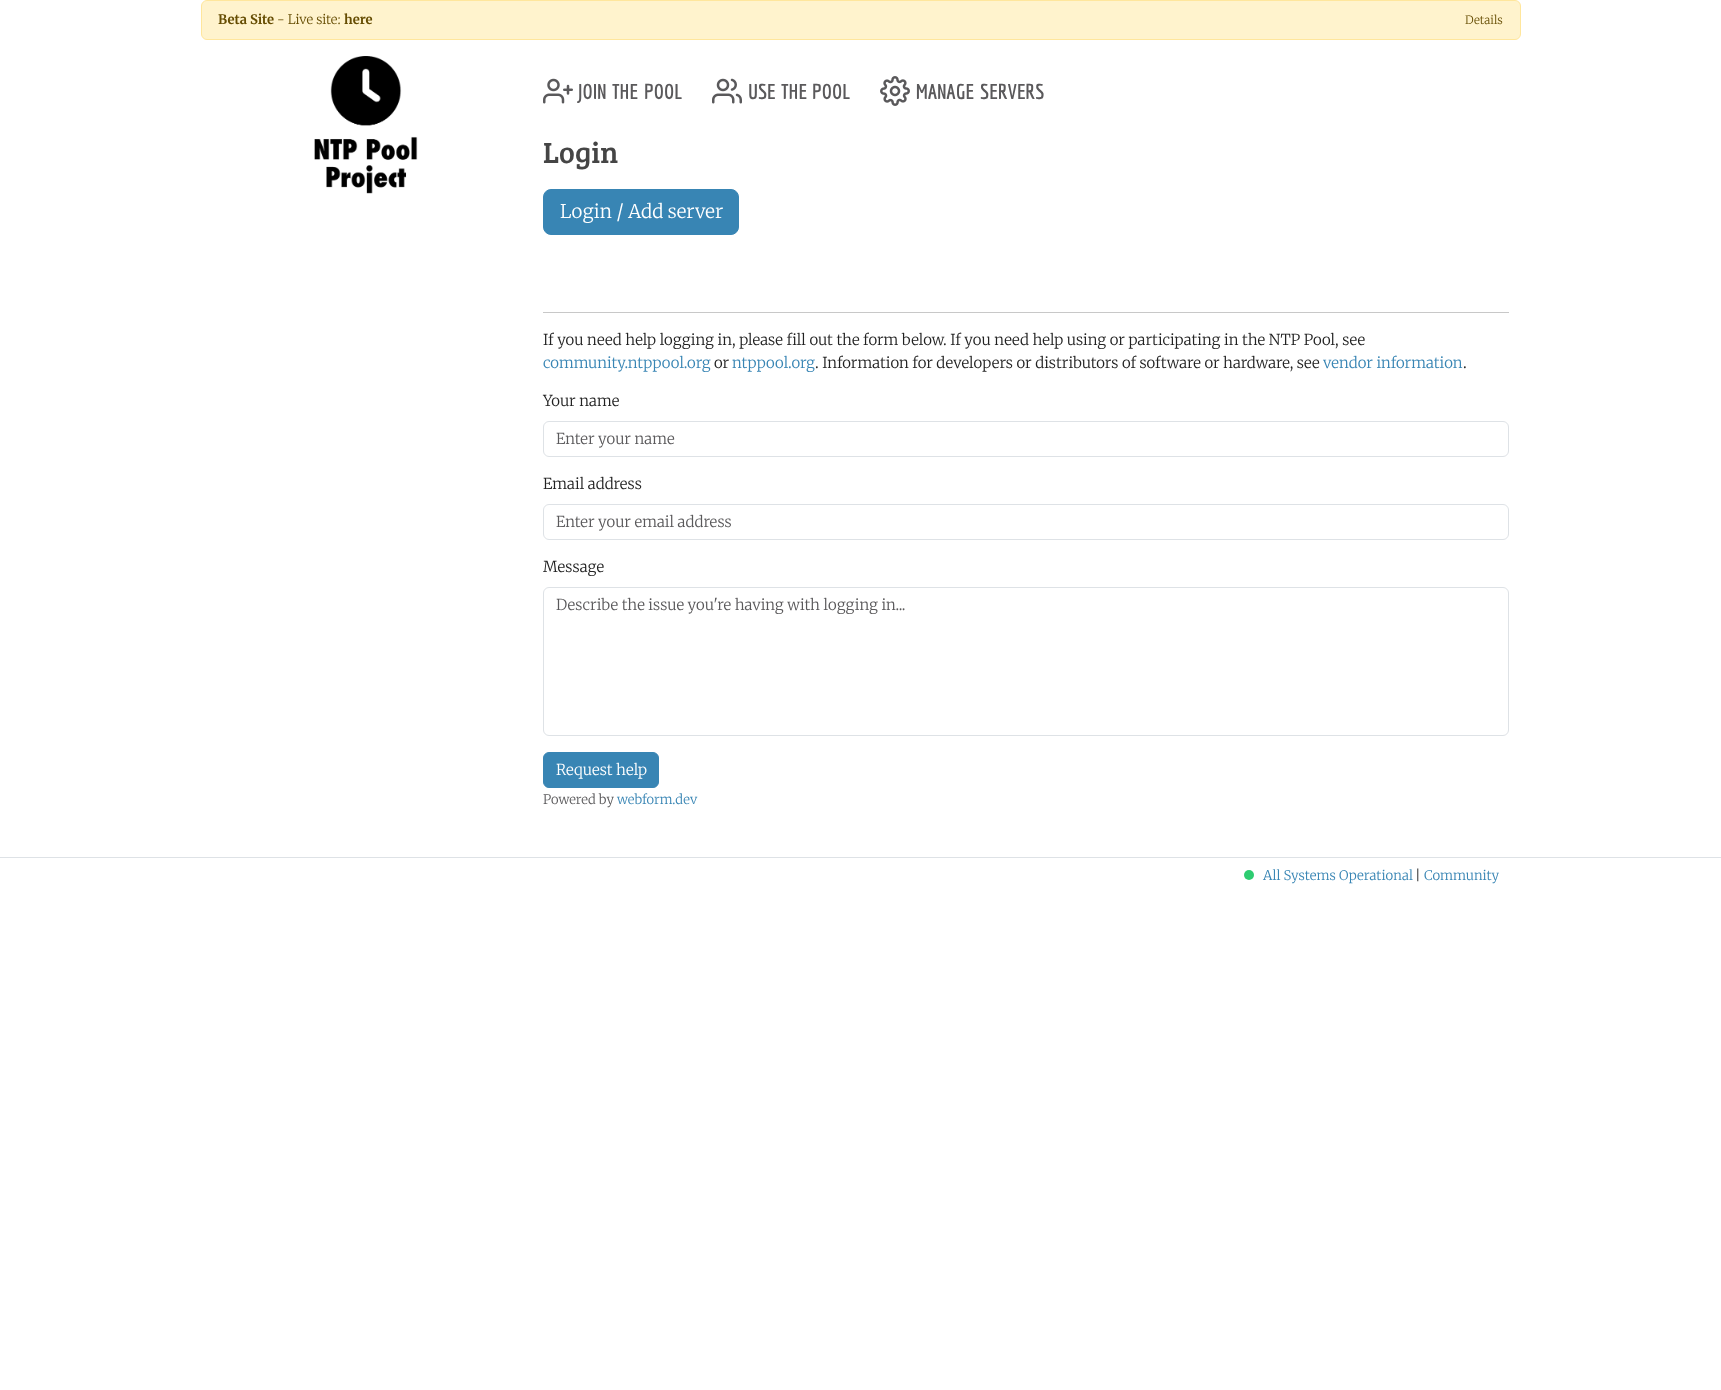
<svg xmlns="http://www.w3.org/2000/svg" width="1721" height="1390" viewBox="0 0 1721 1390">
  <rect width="100%" height="100%" fill="#fff"/>
  <rect x="201.5" y="0.5" width="1319" height="39" rx="5.5" fill="#fff3cd" stroke="#ffe69c"/>
  <image x="314" y="56" width="104" height="138" href="img/1.png"/>
  <image x="543" y="78" width="30" height="26" href="img/2.png"/>
  <image x="712" y="78" width="30" height="26" href="img/3.png"/>
  <image x="880" y="76" width="30" height="30" href="img/4.png"/>
  <rect x="543.5" y="189.5" width="195" height="45" rx="7.5" fill="#3885b4" stroke="#3885b4"/>
  <path d="M543 312h966v1H543z" fill="#c8c8c8"/>
  <rect x="543.5" y="421.5" width="965" height="35" rx="5.5" fill="none" stroke="#dee2e6"/>
  <rect x="543.5" y="504.5" width="965" height="35" rx="5.5" fill="none" stroke="#dee2e6"/>
  <rect x="543.5" y="587.5" width="965" height="148" rx="5.5" fill="none" stroke="#dee2e6"/>
  <rect x="543.5" y="752.5" width="115" height="35" rx="5.5" fill="#3885b4" stroke="#3885b4"/>
  <path d="M0 857h1721v1H0z" fill="#dee2e6"/>
  <circle cx="1249" cy="875" r="5" fill="#2ecc71"/>
  <text x="218" y="24" font-family="Merriweather" font-size="13" font-weight="bold" fill="#664d03">Beta Site</text>
  <text x="277" y="24" font-family="Merriweather" font-size="13" font-weight="300" fill="#664d03">- Live site:</text>
  <text x="344" y="24" font-family="Merriweather" font-size="13" font-weight="bold" fill="#664d03">here</text>
  <text x="1465" y="24" font-family="Merriweather" font-size="11.5" font-weight="300" fill="#664d03">Details</text>
  <g font-family="Economica" font-size="21" font-weight="bold" fill="#5a595b">
    <text x="578" y="99">JOIN</text>
    <text x="612" y="99">THE</text>
    <text x="644" y="99">POOL</text>
    <text x="748" y="99">USE</text>
    <text x="781" y="99">THE</text>
    <text x="812" y="99">POOL</text>
    <text x="916" y="99">MANAGE</text>
    <text x="980" y="99">SERVERS</text>
  </g>
  <text x="543" y="163" font-family="Bree Serif" font-size="30" fill="#454545">Login</text>
  <text x="560" y="218" font-family="Merriweather" font-size="18.75" font-weight="300" fill="#fff">Login / Add server</text>
  <text x="543" y="345" font-family="Merriweather" font-size="15" font-weight="300" fill="#222">If you need help logging in, please fill out the form below. If you need help using or participating in the NTP Pool, see</text>
  <text x="543" y="368" font-family="Merriweather" font-size="15" font-weight="300" fill="#3885b4">community.ntppool.org</text>
  <text x="714" y="368" font-family="Merriweather" font-size="15" font-weight="300" fill="#222">or</text>
  <text x="732" y="368" font-family="Merriweather" font-size="15" font-weight="300" fill="#3885b4">ntppool.org</text>
  <text x="815" y="368" font-family="Merriweather" font-size="15" font-weight="300" fill="#222">. Information for developers or distributors of software or hardware, see</text>
  <text x="1323" y="368" font-family="Merriweather" font-size="15" font-weight="300" fill="#3885b4">vendor information</text>
  <g font-family="Merriweather" font-size="15" font-weight="300" fill="#222">
    <text x="1463" y="368">.</text>
    <text x="543" y="406">Your name</text>
  </g>
  <text x="556" y="444" font-family="Merriweather" font-size="15" font-weight="300" fill="#5a595b">Enter your name</text>
  <text x="543" y="489" font-family="Merriweather" font-size="15" font-weight="300" fill="#222">Email address</text>
  <text x="556" y="527" font-family="Merriweather" font-size="15" font-weight="300" fill="#5a595b">Enter your email address</text>
  <text x="543" y="572" font-family="Merriweather" font-size="15" font-weight="300" fill="#222">Message</text>
  <text x="556" y="610" font-family="Merriweather" font-size="15" font-weight="300" fill="#5a595b">Describe the issue you're having with logging in...</text>
  <text x="556" y="775" font-family="Merriweather" font-size="15" font-weight="300" fill="#fff">Request help</text>
  <text x="543" y="804" font-family="Merriweather" font-size="13" font-weight="300" fill="#5a595b">Powered by</text>
  <text x="617" y="804" font-family="Merriweather" font-size="13" font-weight="300" fill="#3885b4">webform.dev</text>
  <text x="1263" y="880" font-family="Merriweather" font-size="13.25" font-weight="300" fill="#3885b4">All Systems Operational</text>
  <text x="1415" y="880" font-family="Merriweather" font-size="13.25" font-weight="300" fill="#222">|</text>
  <text x="1424" y="880" font-family="Merriweather" font-size="13.25" font-weight="300" fill="#3885b4">Community</text>
</svg>
